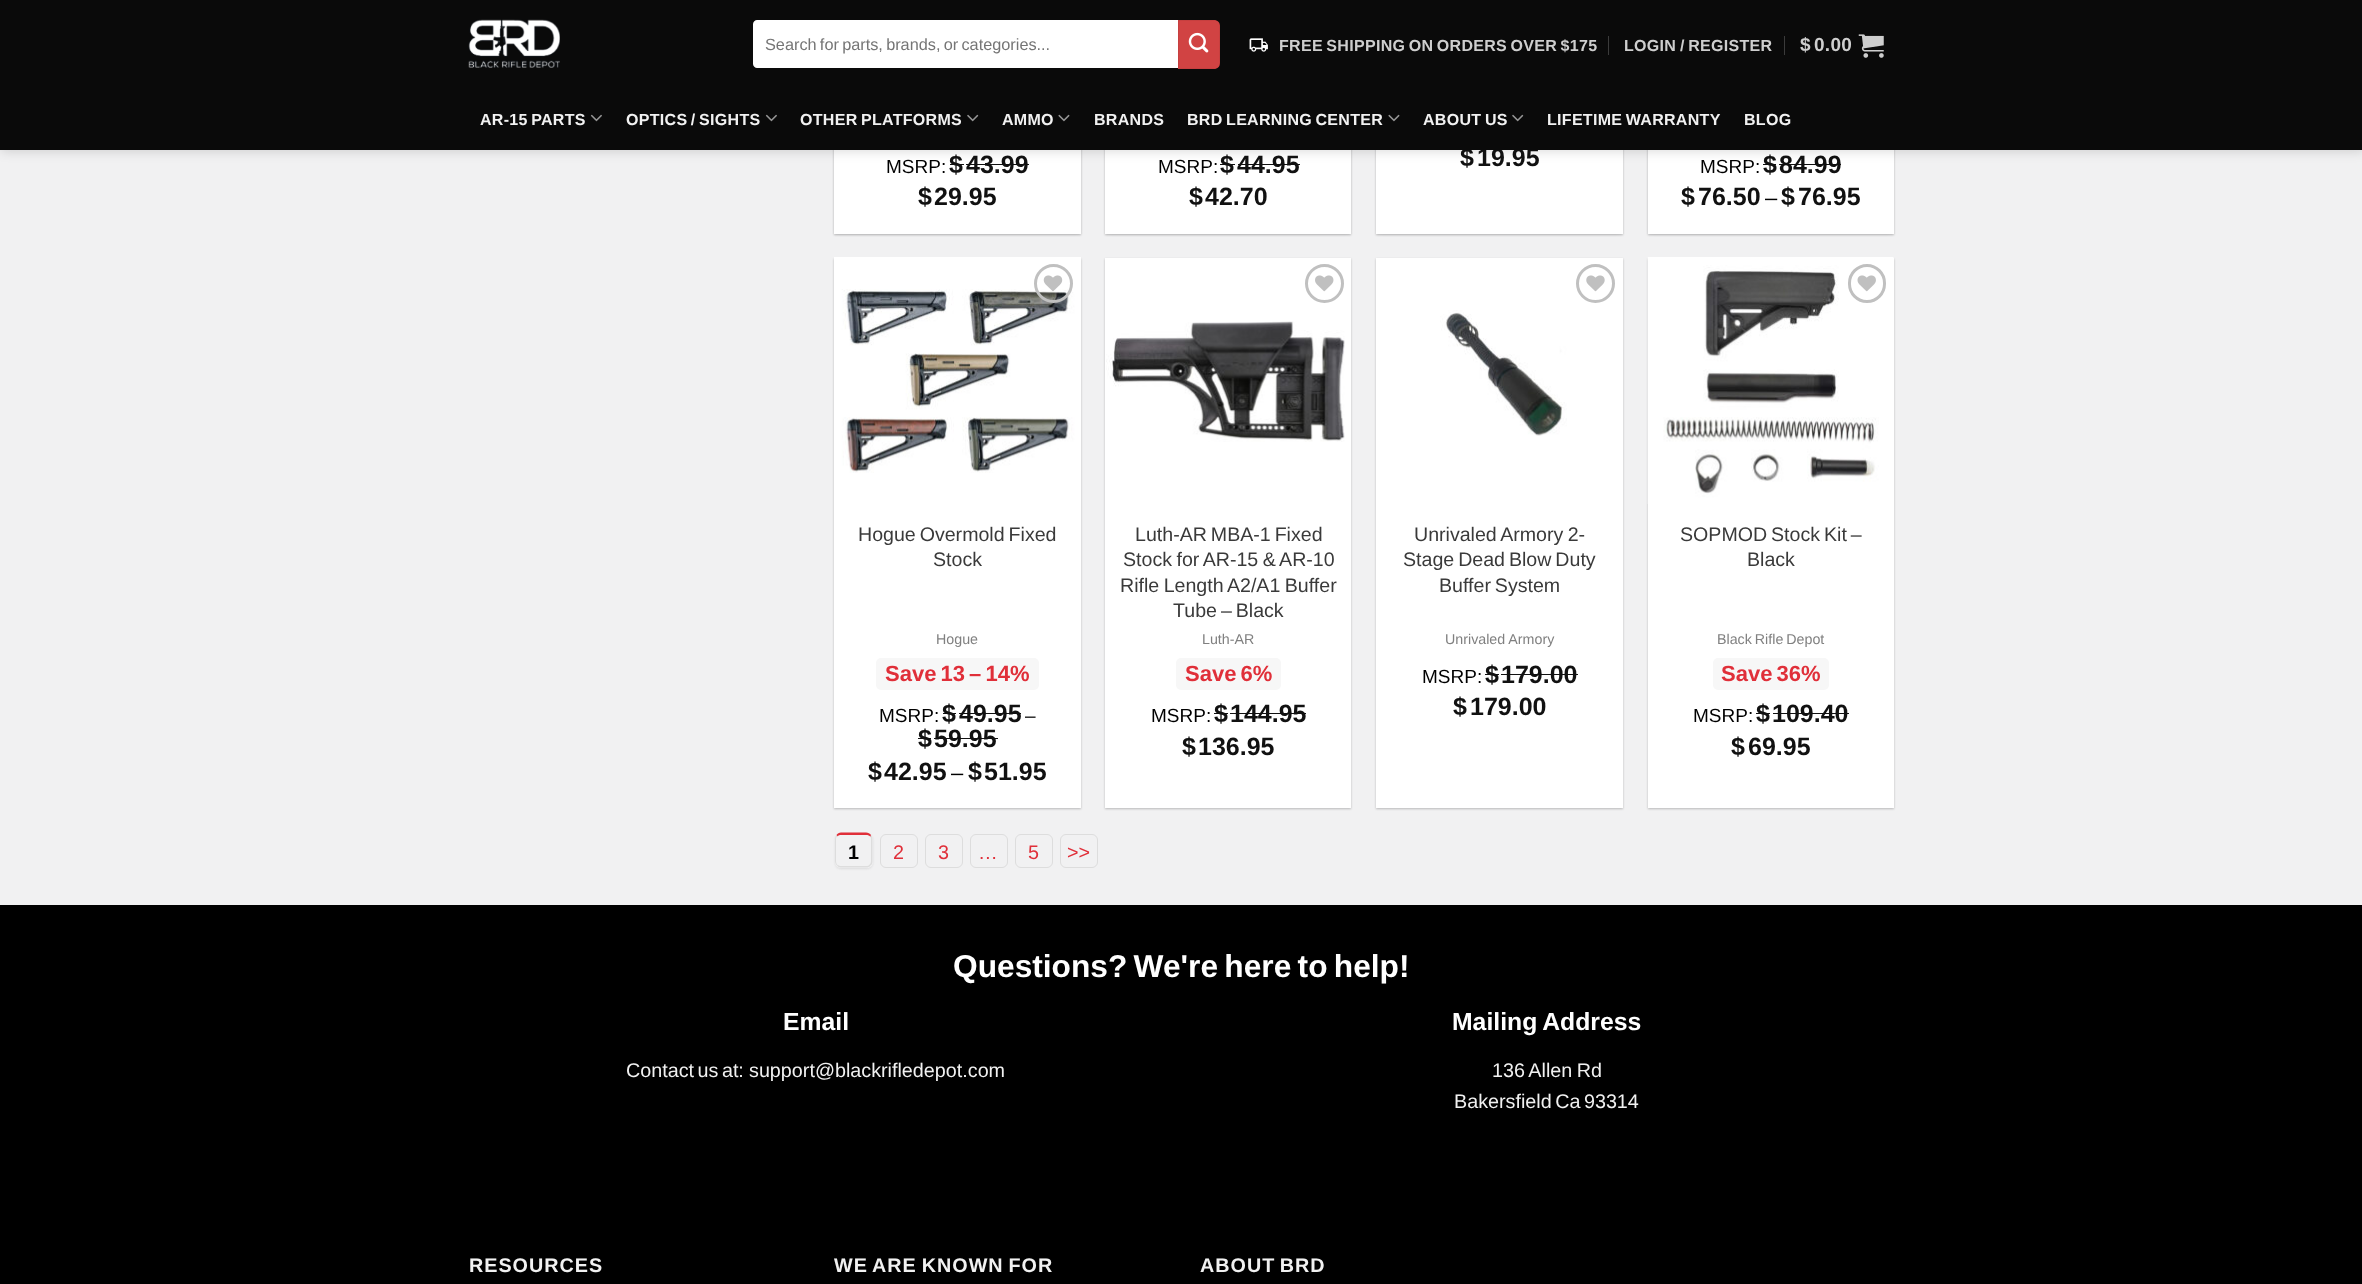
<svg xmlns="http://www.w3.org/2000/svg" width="2362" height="1284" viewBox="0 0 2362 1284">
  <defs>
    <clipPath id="clip1"><path d="M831 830H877V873H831ZM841 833H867C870.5 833 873 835.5 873 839V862C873 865.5 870.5 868 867 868H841C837.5 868 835 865.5 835 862V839C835 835.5 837.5 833 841 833Z" clip-rule="evenodd"/></clipPath>
  </defs>
  <rect width="100%" height="100%" fill="#f1f1f2"/>
  <path d="M834 -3h247v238H834z" fill="#0000003d" filter="blur(1px)"/>
  <path d="M836 -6h243v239H836z" fill="#0000001f" filter="blur(2px)"/>
  <path d="M834 150h247v84H834z" fill="#fff"/>
  <path d="M950 164h14v1H950z" fill="#111"/>
  <path d="M966 164h63v1H966z" fill="#111"/>
  <path d="M1105 -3h246v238H1105z" fill="#0000003d" filter="blur(1px)"/>
  <path d="M1108 -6h241v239H1108z" fill="#0000001f" filter="blur(2px)"/>
  <path d="M1105 150h246v84H1105z" fill="#fff"/>
  <path d="M1220 164h15v1H1220z" fill="#111"/>
  <path d="M1238 164h62v1H1238z" fill="#111"/>
  <path d="M1376 -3h247v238H1376z" fill="#0000003d" filter="blur(1px)"/>
  <path d="M1379 -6h241v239H1379z" fill="#0000001f" filter="blur(2px)"/>
  <path d="M1376 150h247v84H1376z" fill="#fff"/>
  <path d="M1648 -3h246v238H1648z" fill="#0000003d" filter="blur(1px)"/>
  <path d="M1650 -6h241v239H1650z" fill="#0000001f" filter="blur(2px)"/>
  <path d="M1648 150h246v84H1648z" fill="#fff"/>
  <path d="M1763 164h13v1H1763z" fill="#111"/>
  <path d="M1779 164h62v1H1779z" fill="#111"/>
  <path d="M1 1h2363v150H1z" fill="#00000026" filter="blur(6px)"/>
  <path d="M834 259h247v550H834z" fill="#0000003d" filter="blur(1px)"/>
  <path d="M834 473h247v335H834z" fill="#fff"/>
  <image x="834" y="257" width="247" height="216" href="img/8.png"/>
  <circle cx="1053.5" cy="283.5" r="18" fill="none" stroke="#c0c0c0" stroke-width="3"/>
  <image x="1043" y="275" width="20" height="17" href="img/9.png"/>
  <rect x="876" y="658" width="163" height="32" rx="5" fill="#f7f7f7"/>
  <path d="M943 713h13v1H943z" fill="#111"/>
  <path d="M959 713h62v1H959z" fill="#111"/>
  <path d="M918 738h13v1H918z" fill="#111"/>
  <path d="M934 738h64v1H934z" fill="#111"/>
  <path d="M1105 259h246v550H1105z" fill="#0000003d" filter="blur(1px)"/>
  <path d="M1105 258h246v550H1105z" fill="#fff"/>
  <circle cx="1324.5" cy="283.5" r="18" fill="none" stroke="#c0c0c0" stroke-width="3"/>
  <image x="1315" y="275" width="19" height="17" href="img/10.png"/>
  <image x="1106" y="321" width="239" height="121" href="img/11.png"/>
  <rect x="1176" y="658" width="105" height="32" rx="5" fill="#f7f7f7"/>
  <path d="M1214 713h14v1H1214z" fill="#111"/>
  <path d="M1230 713h76v1H1230z" fill="#111"/>
  <path d="M1376 259h247v550H1376z" fill="#0000003d" filter="blur(1px)"/>
  <path d="M1376 258h247v550H1376z" fill="#fff"/>
  <circle cx="1595.5" cy="283.5" r="18" fill="none" stroke="#c0c0c0" stroke-width="3"/>
  <image x="1586" y="275" width="19" height="17" href="img/12.png"/>
  <image x="1440" y="310" width="127" height="126" href="img/13.png"/>
  <path d="M1485 674h14v1H1485z" fill="#111"/>
  <path d="M1501 674h77v1H1501z" fill="#111"/>
  <path d="M1648 259h246v550H1648z" fill="#0000003d" filter="blur(1px)"/>
  <path d="M1648 258h246v550H1648z" fill="#fff"/>
  <image x="1647" y="257" width="247" height="247" href="img/14.png"/>
  <rect x="1849.5" y="265.5" width="35" height="36" rx="17.5" fill="none" stroke="#c0c0c0" stroke-width="3"/>
  <image x="1857" y="275" width="19" height="17" href="img/15.png"/>
  <rect x="1713" y="658" width="116" height="32" rx="5" fill="#f7f7f7"/>
  <path d="M1756 713h14v1H1756z" fill="#111"/>
  <path d="M1773 713h76v1H1773z" fill="#111"/>
  <g clip-path="url(#clip1)">
    <rect x="835" y="834" width="38" height="35" rx="6" fill="#7f7f7f2e" filter="blur(1px)"/>
  </g>
  <path d="M841 832.5C839 832.5 837.5 833.5 836.5 835L837 836.5C838 835.5 839.5 835 841 835H866C868 835 869.5 835.5 870.5 837L871 835C870 833.5 868 832.5 866 832.5Z" fill="#e02f39"/>
  <path d="M872.5 861V839C872.5 837.5 872 836 871 835L870.5 837C871 837.5 871 838 871 839V861C871 862.5 870.5 864 869.5 864.5L870.5 865.5C872 864.5 872.5 863 872.5 861Z" fill="#ddd"/>
  <path d="M841 867.5H866C868 867.5 869.5 867 870.5 865.5L869.5 864.5C869 865.5 867.5 866 866 866H841C840 866 838.5 865.5 837.5 865L837 865.5C838 867 839.5 867.5 841 867.5Z" fill="#ddd"/>
  <path d="M835 839V861C835 863 836 864.5 837 865.5L837.5 865C836.5 864 836 862.5 836 861V839C836 838 836.5 837 837 836.5L836.5 835C835.5 836 835 837.5 835 839Z" fill="#ddd"/>
  <rect x="880.5" y="834.5" width="37" height="33" rx="5.5" fill="none" stroke="#ddd"/>
  <rect x="925.5" y="834.5" width="37" height="33" rx="5.5" fill="none" stroke="#ddd"/>
  <rect x="970.5" y="834.5" width="37" height="33" rx="5.5" fill="none" stroke="#ddd"/>
  <rect x="1015.5" y="834.5" width="37" height="33" rx="5.5" fill="none" stroke="#ddd"/>
  <rect x="1060.5" y="834.5" width="37" height="33" rx="5.5" fill="none" stroke="#ddd"/>
  <path d="M0 905h2362v379H0z" fill="#000"/>
  <text x="886" y="173" font-family="Liberation Sans" font-size="19" fill="#000">MSRP:</text>
  <g font-family="Liberation Sans" font-size="25" font-weight="bold" fill="#111">
    <text x="949" y="173">$</text>
    <text x="966" y="173">43.99</text>
    <text x="918" y="205">$</text>
    <text x="934" y="205">29.95</text>
  </g>
  <text x="1158" y="173" font-family="Liberation Sans" font-size="19" fill="#000">MSRP:</text>
  <g font-family="Liberation Sans" font-size="25" font-weight="bold" fill="#111">
    <text x="1220" y="173">$</text>
    <text x="1237" y="173">44.95</text>
    <text x="1189" y="205">$</text>
    <text x="1205" y="205">42.70</text>
    <text x="1460" y="166">$</text>
    <text x="1477" y="166">19.95</text>
  </g>
  <path d="M0 0h2362v150H0z" fill="#0a0a0a"/>
  <path d="M1784 36h1v19H1784z" fill="#3b3b3b"/>
  <image x="1858" y="34" width="26" height="24" href="img/4.png"/>
  <g font-family="Liberation Sans" font-size="19" font-weight="bold" letter-spacing="0.3" fill="#cecece">
    <text x="1814" y="51">0.00</text>
    <text x="1800" y="51">$</text>
  </g>
  <path d="M1608 36h1v19H1608z" fill="#3b3b3b"/>
  <g font-family="Liberation Sans" font-size="16" font-weight="bold" letter-spacing="0.3" fill="#cecece">
    <text x="1680" y="51" word-spacing="-1.25">/ REGISTER</text>
    <text x="1624" y="51">LOGIN</text>
  </g>
  <image x="1249" y="38" width="19" height="14" href="img/3.png"/>
  <text x="1279" y="51" word-spacing="-1.25" font-family="Liberation Sans" font-size="16" font-weight="bold" letter-spacing="0.3" fill="#cecece">FREE SHIPPING ON ORDERS OVER $175</text>
  <path d="M1178 20H1214C1217.5 20 1220 22.5 1220 26V63C1220 66.5 1217.5 69 1214 69H1178Z" fill="#d14343"/>
  <path d="M1178.5 20.5h41v48H1178.5z" fill="none" stroke="#0000000d"/>
  <image x="1188" y="32" width="21" height="21" href="img/2.png"/>
  <path d="M757 20H1178V68H757C755 68 753 66 753 64V24C753 22 755 20 757 20Z" fill="#fff"/>
  <text x="765" y="50" word-spacing="-1.25" font-family="Liberation Sans" font-size="16.3" fill="#757575">Search for parts, brands, or categories...</text>
  <image x="468" y="19" width="92" height="49" href="img/1.png"/>
  <g font-family="Liberation Sans" font-size="16" font-weight="bold" letter-spacing="0.3" fill="#f1f1f1">
    <text x="1744" y="125">BLOG</text>
    <text x="1547" y="125" word-spacing="-1.25">LIFETIME WARRANTY</text>
  </g>
  <image x="1512" y="114" width="12" height="8" href="img/6.png"/>
  <text x="1423" y="125" word-spacing="-1.25" font-family="Liberation Sans" font-size="16" font-weight="bold" letter-spacing="0.3" fill="#f1f1f1">ABOUT US</text>
  <image x="1388" y="114" width="12" height="8" href="img/7.png"/>
  <g font-family="Liberation Sans" font-size="16" font-weight="bold" letter-spacing="0.3" fill="#f1f1f1">
    <text x="1187" y="125" word-spacing="-1.25">BRD LEARNING CENTER</text>
    <text x="1094" y="125">BRANDS</text>
  </g>
  <image x="1058" y="114" width="12" height="8" href="img/7.png"/>
  <text x="1002" y="125" font-family="Liberation Sans" font-size="16" font-weight="bold" letter-spacing="0.3" fill="#f1f1f1">AMMO</text>
  <image x="967" y="114" width="12" height="8" href="img/6.png"/>
  <text x="800" y="125" word-spacing="-1.25" font-family="Liberation Sans" font-size="16" font-weight="bold" letter-spacing="0.3" fill="#f1f1f1">OTHER PLATFORMS</text>
  <image x="765" y="114" width="12" height="8" href="img/5.png"/>
  <text x="626" y="125" word-spacing="-1.25" font-family="Liberation Sans" font-size="16" font-weight="bold" letter-spacing="0.3" fill="#f1f1f1">OPTICS / SIGHTS</text>
  <image x="590" y="114" width="12" height="8" href="img/5.png"/>
  <text x="480" y="125" word-spacing="-1.25" font-family="Liberation Sans" font-size="16" font-weight="bold" letter-spacing="0.3" fill="#f1f1f1">AR-15 PARTS</text>
  <text x="1700" y="173" font-family="Liberation Sans" font-size="19" fill="#000">MSRP:</text>
  <g font-family="Liberation Sans" font-size="25" font-weight="bold" fill="#111">
    <text x="1763" y="173">$</text>
    <text x="1779" y="173">84.99</text>
    <text x="1681" y="205">$</text>
    <text x="1698" y="205">76.50</text>
  </g>
  <text x="1765" y="205" font-family="Liberation Sans" font-size="22" fill="#000">–</text>
  <g font-family="Liberation Sans" font-size="25" font-weight="bold" fill="#111">
    <text x="1781" y="205">$</text>
    <text x="1798" y="205">76.95</text>
  </g>
  <g font-family="Liberation Sans" font-size="19.6" fill="#3a3a3a">
    <text x="858" y="541" word-spacing="-1.5">Hogue Overmold Fixed</text>
    <text x="933" y="566">Stock</text>
  </g>
  <text x="936" y="644" font-family="Liberation Sans" font-size="14.25" fill="#808080">Hogue</text>
  <text x="885" y="681" word-spacing="-2" font-family="Liberation Sans" font-size="22" font-weight="bold" fill="#e02f39">Save 13 – 14%</text>
  <text x="879" y="722" font-family="Liberation Sans" font-size="19" fill="#000">MSRP:</text>
  <g font-family="Liberation Sans" font-size="25" font-weight="bold" fill="#111">
    <text x="942" y="722">$</text>
    <text x="959" y="722">49.95</text>
  </g>
  <text x="1025" y="722" font-family="Liberation Sans" font-size="19" fill="#000">–</text>
  <g font-family="Liberation Sans" font-size="25" font-weight="bold" fill="#111">
    <text x="918" y="747">$</text>
    <text x="934" y="747">59.95</text>
    <text x="868" y="780">$</text>
    <text x="884" y="780">42.95</text>
  </g>
  <text x="951" y="780" font-family="Liberation Sans" font-size="22" fill="#000">–</text>
  <g font-family="Liberation Sans" font-size="25" font-weight="bold" fill="#111">
    <text x="968" y="780">$</text>
    <text x="984" y="780">51.95</text>
  </g>
  <g font-family="Liberation Sans" font-size="19.6" fill="#3a3a3a">
    <text x="1135" y="541" word-spacing="-1.5">Luth-AR MBA-1 Fixed</text>
    <text x="1123" y="566" word-spacing="-1">Stock for AR-15 &amp; AR-10</text>
    <text x="1120" y="592" word-spacing="-1">Rifle Length A2/A1 Buffer</text>
    <text x="1173" y="617" word-spacing="-1.5">Tube – Black</text>
  </g>
  <text x="1202" y="644" font-family="Liberation Sans" font-size="14.25" fill="#808080">Luth-AR</text>
  <text x="1185" y="681" word-spacing="-2" font-family="Liberation Sans" font-size="22" font-weight="bold" fill="#e02f39">Save 6%</text>
  <text x="1151" y="722" font-family="Liberation Sans" font-size="19" fill="#000">MSRP:</text>
  <g font-family="Liberation Sans" font-size="25" font-weight="bold" fill="#111">
    <text x="1214" y="722">$</text>
    <text x="1230" y="722">144.95</text>
    <text x="1182" y="755">$</text>
    <text x="1198" y="755">136.95</text>
  </g>
  <g font-family="Liberation Sans" font-size="19.6" fill="#3a3a3a">
    <text x="1414" y="541" word-spacing="-1">Unrivaled Armory 2-</text>
    <text x="1403" y="566" word-spacing="-1.5">Stage Dead Blow Duty</text>
    <text x="1439" y="592" word-spacing="-1.5">Buffer System</text>
  </g>
  <text x="1445" y="644" font-family="Liberation Sans" font-size="14.25" fill="#808080">Unrivaled Armory</text>
  <text x="1422" y="683" font-family="Liberation Sans" font-size="19" fill="#000">MSRP:</text>
  <g font-family="Liberation Sans" font-size="25" font-weight="bold" fill="#111">
    <text x="1485" y="683">$</text>
    <text x="1501" y="683">179.00</text>
    <text x="1453" y="715">$</text>
    <text x="1470" y="715">179.00</text>
  </g>
  <g font-family="Liberation Sans" font-size="19.6" fill="#3a3a3a">
    <text x="1680" y="541" word-spacing="-1.5">SOPMOD Stock Kit –</text>
    <text x="1747" y="566">Black</text>
  </g>
  <text x="1717" y="644" word-spacing="-1" font-family="Liberation Sans" font-size="14.25" fill="#808080">Black Rifle Depot</text>
  <text x="1721" y="681" word-spacing="-2" font-family="Liberation Sans" font-size="22" font-weight="bold" fill="#e02f39">Save 36%</text>
  <text x="1693" y="722" font-family="Liberation Sans" font-size="19" fill="#000">MSRP:</text>
  <g font-family="Liberation Sans" font-size="25" font-weight="bold" fill="#111">
    <text x="1756" y="722">$</text>
    <text x="1772" y="722">109.40</text>
    <text x="1731" y="755">$</text>
    <text x="1748" y="755">69.95</text>
  </g>
  <text x="848" y="859" font-family="Liberation Sans" font-size="19.75" font-weight="bold" fill="#000">1</text>
  <g font-family="Liberation Sans" font-size="19.75" fill="#e02f39">
    <text x="893" y="859">2</text>
    <text x="938" y="859">3</text>
    <text x="978" y="859">…</text>
    <text x="1028" y="859">5</text>
    <text x="1067" y="859">&gt;&gt;</text>
  </g>
  <text x="953" y="977" word-spacing="-2.5" font-family="Liberation Sans" font-size="31.7" font-weight="bold" fill="#fff">Questions? We're here to help!</text>
  <text x="783" y="1030" font-family="Liberation Sans" font-size="24.75" font-weight="bold" fill="#fff">Email</text>
  <g font-family="Liberation Sans" font-size="19.75" fill="#f1f1f1">
    <text x="626" y="1077" word-spacing="-2">Contact us at:</text>
    <text x="749" y="1077">support@blackrifledepot.com</text>
  </g>
  <text x="1452" y="1030" word-spacing="-1" font-family="Liberation Sans" font-size="24.75" font-weight="bold" fill="#fff">Mailing Address</text>
  <g font-family="Liberation Sans" font-size="19.75" fill="#f1f1f1">
    <text x="1492" y="1077" word-spacing="-1">136 Allen Rd</text>
    <text x="1454" y="1108" word-spacing="-2">Bakersfield Ca 93314</text>
  </g>
  <g font-family="Liberation Sans" font-size="19.75" font-weight="bold" letter-spacing="1" fill="#f1f1f1">
    <text x="469" y="1272">RESOURCES</text>
    <text x="834" y="1272" word-spacing="-1.5">WE ARE KNOWN FOR</text>
    <text x="1200" y="1272" word-spacing="-2">ABOUT BRD</text>
  </g>
</svg>
